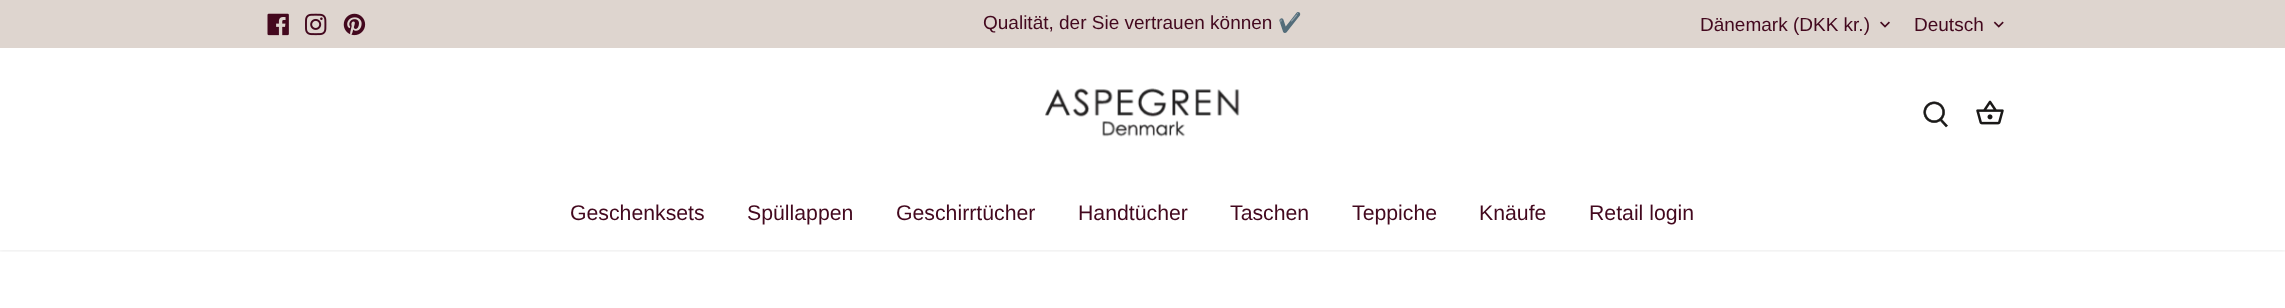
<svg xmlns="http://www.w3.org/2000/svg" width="2285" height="308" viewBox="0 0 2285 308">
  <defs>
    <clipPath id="clip1"><path d="M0 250h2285v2H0z"/></clipPath>
  </defs>
  <rect width="100%" height="100%" fill="#fff"/>
  <g clip-path="url(#clip1)">
    <path d="M-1 46h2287v205H-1z" fill="#00000014" filter="blur(2px)"/>
  </g>
  <path d="M0 0h2285v48H0z" fill="#ded5cf"/>
  <image x="267" y="13" width="22" height="23" href="img/1.png"/>
  <image x="305" y="13" width="22" height="23" href="img/2.png"/>
  <image x="343" y="13" width="23" height="23" href="img/3.png"/>
  <image x="1880" y="21" width="10" height="7" href="img/4.png"/>
  <image x="1993" y="21" width="11" height="7" href="img/5.png"/>
  <image x="1045" y="88" width="195" height="49" href="img/6.png"/>
  <image x="1923" y="101" width="25" height="27" href="img/7.png"/>
  <image x="1976" y="100" width="28" height="25" href="img/8.png"/>
  <text x="983" y="29" font-family="Arimo" font-size="19" fill="#43081e">Qualität, der Sie vertrauen können</text>
  <text x="1278" y="29" font-family="Noto Color Emoji" font-size="19" fill="#43081e">✔️</text>
  <g font-family="Arimo" font-size="19" fill="#43081e">
    <text x="1700" y="31">Dänemark (DKK kr.)</text>
    <text x="1914" y="31">Deutsch</text>
  </g>
  <g font-family="Arimo" font-size="21.25" fill="#43081e">
    <text x="570" y="220">Geschenksets</text>
    <text x="747" y="220">Spüllappen</text>
    <text x="896" y="220">Geschirrtücher</text>
    <text x="1078" y="220">Handtücher</text>
    <text x="1230" y="220">Taschen</text>
    <text x="1352" y="220">Teppiche</text>
    <text x="1479" y="220">Knäufe</text>
    <text x="1589" y="220">Retail login</text>
  </g>
</svg>
